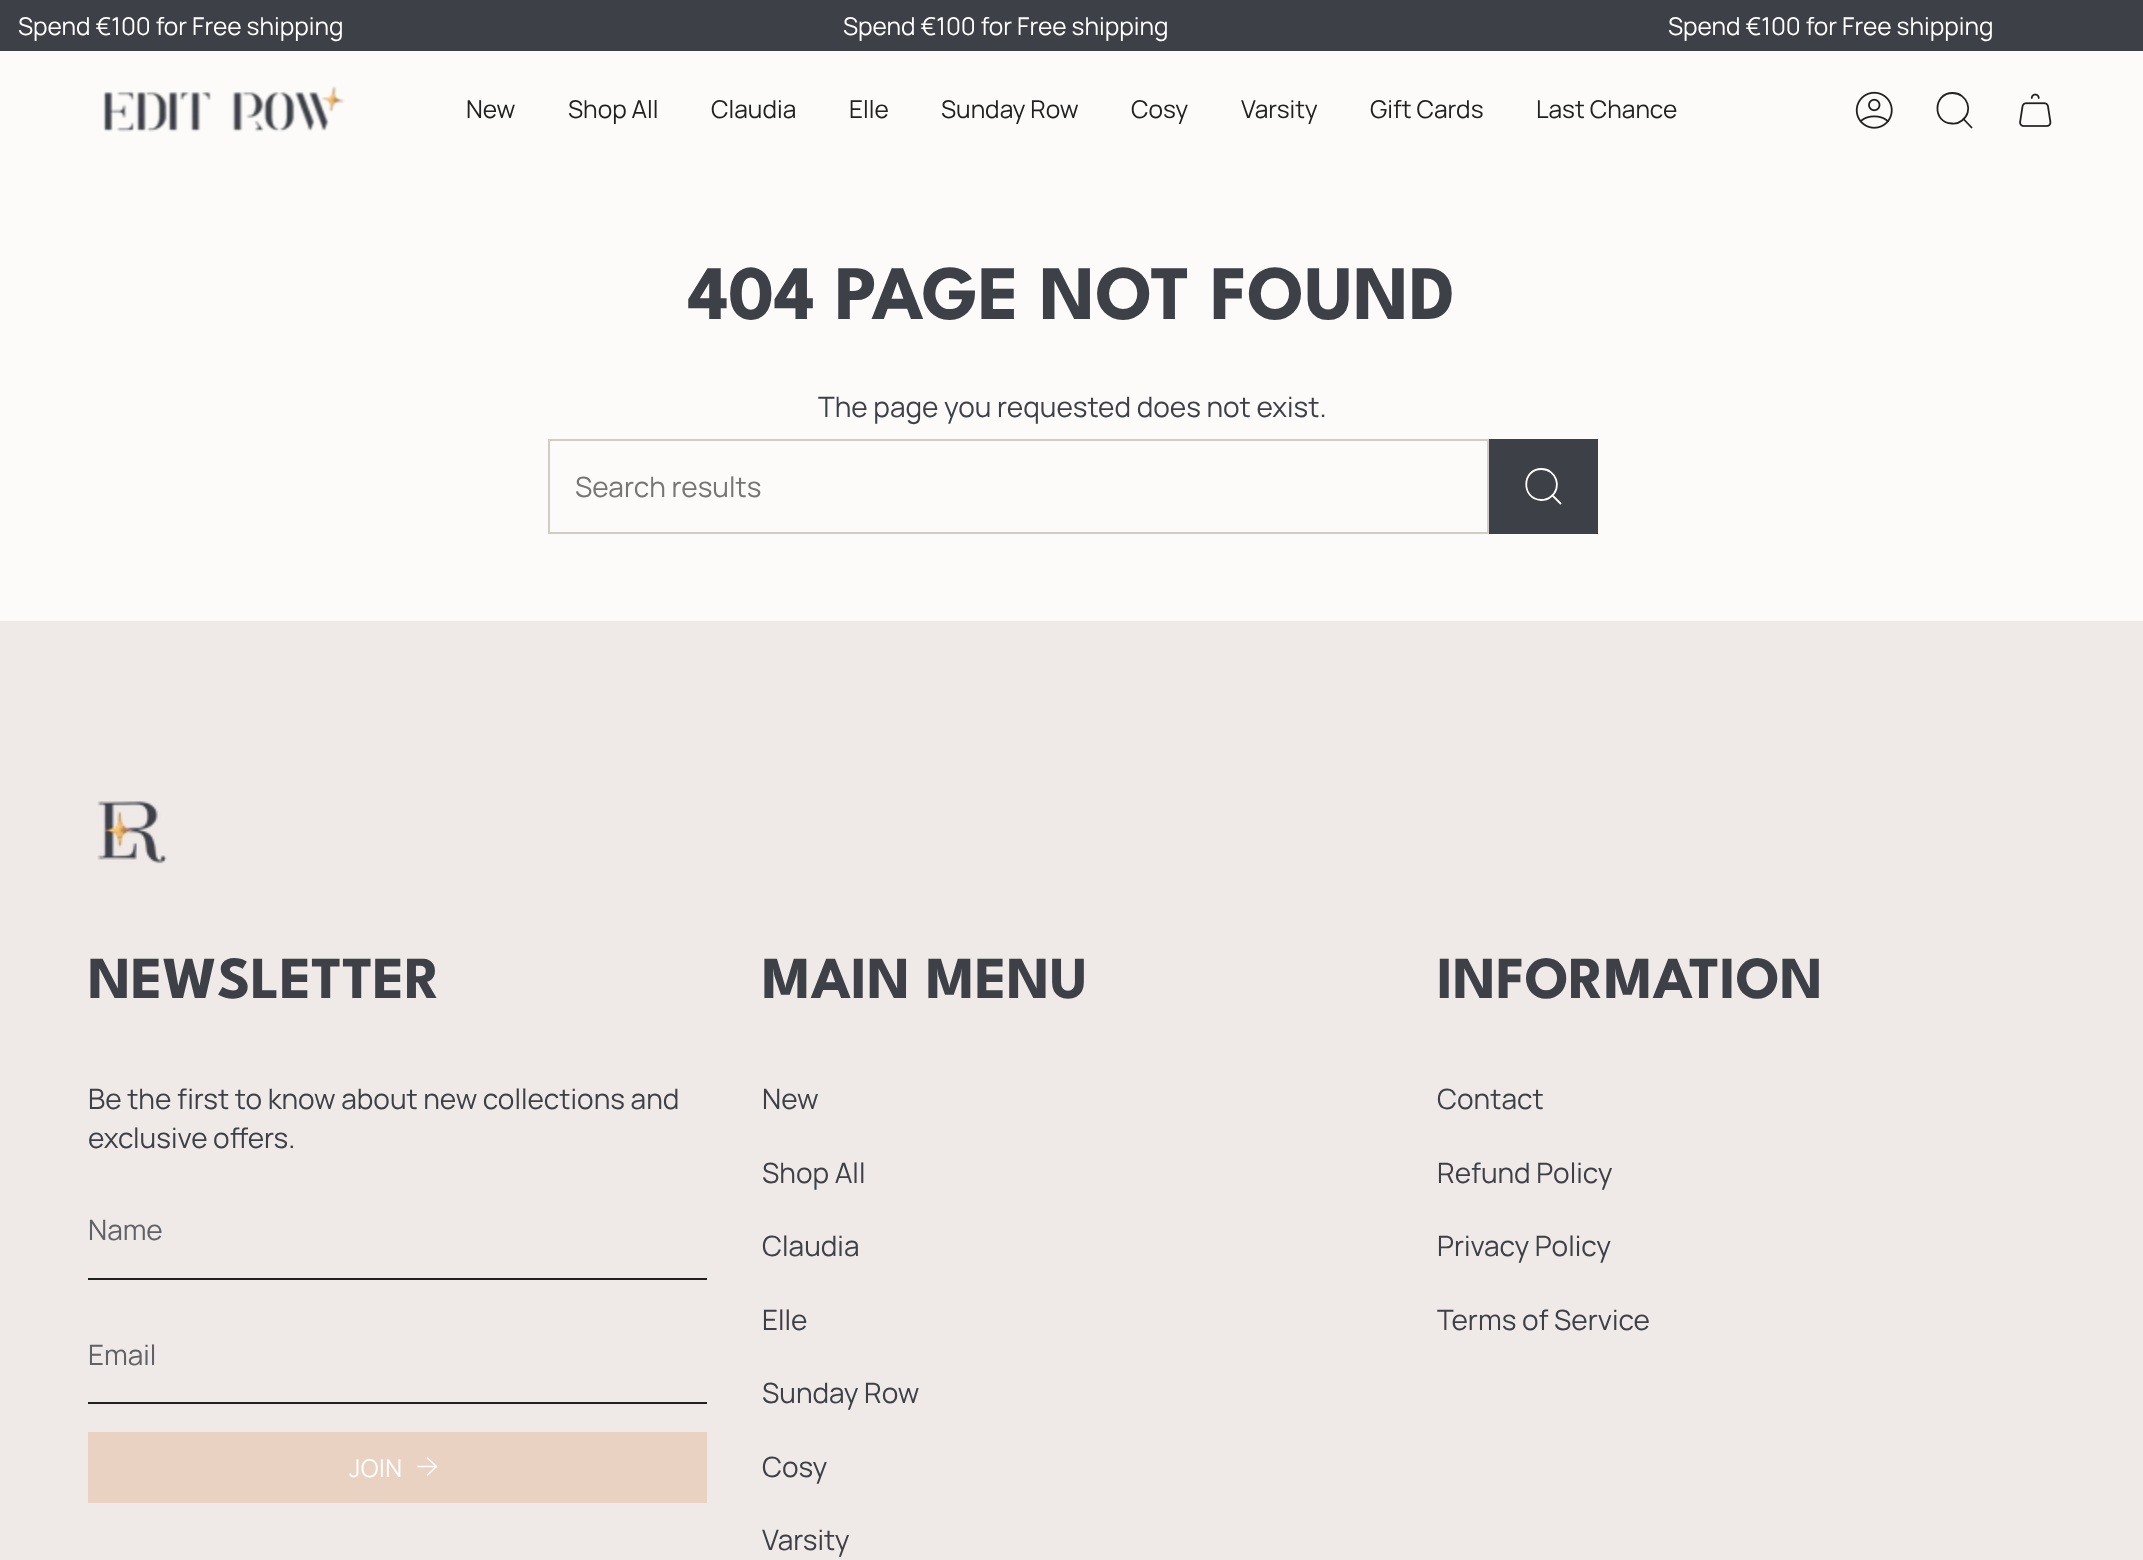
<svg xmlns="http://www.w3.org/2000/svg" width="2143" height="1560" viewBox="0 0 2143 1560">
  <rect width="100%" height="100%" fill="#fcfbf9"/>
  <path d="M0 0h2143v51H0z" fill="#3e4048"/>
  <image x="103" y="86" width="242" height="46" href="img/1.png"/>
  <image x="1855" y="91" width="38" height="38" href="img/2.png"/>
  <path d="M1952.5 93C1967.5 93 1974 112 1962 120.5C1959 123 1955.5 124 1952 123.5C1932 123 1933 93 1952.5 93ZM1963.5 119L1972 128" fill="none" stroke="#212121" stroke-width="1.8"/>
  <image x="2019" y="93" width="33" height="34" href="img/3.png"/>
  <path d="M549 440h939v93H549z" fill="none" stroke="#d1cdc4" stroke-width="2"/>
  <path d="M1489 439h109v95H1489z" fill="#3e4048"/>
  <path d="M1541.5 469C1556 469 1563 488 1550.5 497C1548 499 1544.5 500 1541 500C1521 499 1521.5 469 1541.5 469ZM1552.5 495.5L1561 504" fill="none" stroke="#fff" stroke-width="1.8"/>
  <path d="M0 621h2143v939H0z" fill="#efe9e7"/>
  <image x="97" y="801" width="70" height="63" href="img/4.png"/>
  <path d="M88 1278h619v2H88z" fill="#212121"/>
  <path d="M88 1402h619v2H88z" fill="#212121"/>
  <path d="M88 1432h619v71H88z" fill="#e9d2c2"/>
  <path d="M418 1466.5H436.5M436.5 1466.5L427.5 1458M436.5 1466.5L427.5 1475" fill="none" stroke="#fff" stroke-width="1.5" stroke-linecap="round" stroke-linejoin="round"/>
  <g font-family="Manrope" font-size="24.5" fill="#fff">
    <text x="18" y="35">Spend €100 for Free shipping</text>
    <text x="843" y="35">Spend €100 for Free shipping</text>
    <text x="1668" y="35">Spend €100 for Free shipping</text>
  </g>
  <g font-family="Manrope" font-size="24.5" fill="#212121">
    <text x="466" y="118">New</text>
    <text x="568" y="118">Shop All</text>
    <text x="711" y="118">Claudia</text>
    <text x="849" y="118">Elle</text>
    <text x="941" y="118">Sunday Row</text>
    <text x="1131" y="118">Cosy</text>
    <text x="1241" y="118">Varsity</text>
    <text x="1370" y="118">Gift Cards</text>
    <text x="1536" y="118">Last Chance</text>
  </g>
  <text x="688" y="319" font-family="League Spartan" font-size="77" font-weight="bold" fill="#3e4048">404 PAGE NOT FOUND</text>
  <text x="818" y="417" font-family="Manrope" font-size="28" fill="#3e4048">The page you requested does not exist.</text>
  <text x="575" y="497" font-family="Manrope" font-size="28" fill="#757575">Search results</text>
  <text x="88" y="998" font-family="League Spartan" font-size="59.5" font-weight="bold" fill="#3e4048">NEWSLETTER</text>
  <g font-family="Manrope" font-size="28" fill="#3e4048">
    <text x="88" y="1109">Be the first to know about new collections and</text>
    <text x="88" y="1148">exclusive offers.</text>
  </g>
  <g font-family="Manrope" font-size="28" fill="#616268">
    <text x="88" y="1240">Name</text>
    <text x="88" y="1365">Email</text>
  </g>
  <text x="349" y="1477" font-family="Manrope" font-size="24.5" letter-spacing="0.5" fill="#fff">JOIN</text>
  <text x="762" y="998" font-family="League Spartan" font-size="59.5" font-weight="bold" fill="#3e4048">MAIN MENU</text>
  <g font-family="Manrope" font-size="28" fill="#3e4048">
    <text x="762" y="1109">New</text>
    <text x="762" y="1183">Shop All</text>
    <text x="762" y="1256">Claudia</text>
    <text x="762" y="1330">Elle</text>
    <text x="762" y="1403">Sunday Row</text>
    <text x="762" y="1477">Cosy</text>
    <text x="762" y="1550">Varsity</text>
  </g>
  <text x="1437" y="998" font-family="League Spartan" font-size="59.5" font-weight="bold" fill="#3e4048">INFORMATION</text>
  <g font-family="Manrope" font-size="28" fill="#3e4048">
    <text x="1437" y="1109">Contact</text>
    <text x="1437" y="1183">Refund Policy</text>
    <text x="1437" y="1256">Privacy Policy</text>
    <text x="1437" y="1330">Terms of Service</text>
  </g>
</svg>
